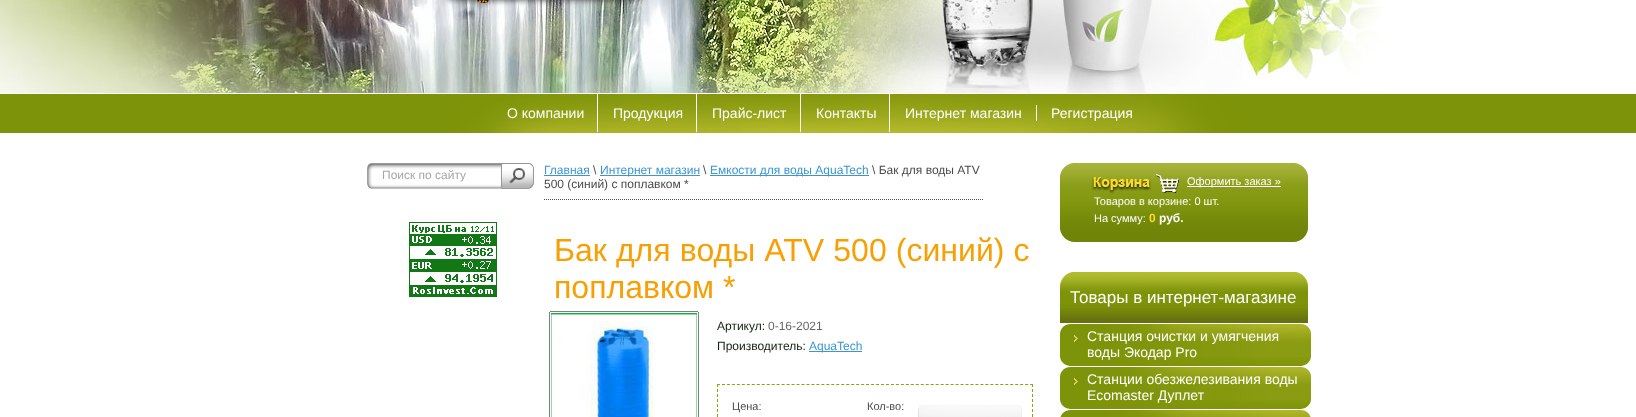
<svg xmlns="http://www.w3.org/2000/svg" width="1636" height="417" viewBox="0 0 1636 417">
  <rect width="100%" height="100%" fill="#fff"/>
  <path d="M1381 94h255v39H1381z" fill="#7d9309"/>
  <image x="0" y="0" width="1381" height="133" href="img/1.png"/>
  <image x="441" y="0" width="207" height="8" href="img/2.png"/>
  <path d="M597 94h1v38H597z" fill="#fff"/>
  <path d="M696 94h1v38H696z" fill="#fff"/>
  <path d="M800 94h1v38H800z" fill="#fff"/>
  <path d="M889 94h1v38H889z" fill="#fff"/>
  <path d="M1036 105h1v16H1036z" fill="#fff"/>
  <image x="367" y="163" width="167" height="26" href="img/3.png"/>
  <image x="409" y="222" width="88" height="75" href="img/4.png"/>
  <path d="M544 199.5H984" fill="none" stroke="#4b4b4b" stroke-dasharray="1 1"/>
  <path d="M544 175h46v1H544z" fill="#3a95d1"/>
  <path d="M600 175h100v1H600z" fill="#3a95d1"/>
  <path d="M710 175h159v1H710z" fill="#3a95d1"/>
  <image x="549" y="311" width="150" height="106" href="img/5.png"/>
  <path d="M809 351h53v1H809z" fill="#3a95d1"/>
  <path d="M717 384.5H1033" fill="none" stroke="#90a20c" stroke-dasharray="3 1.97"/>
  <path d="M1032.5 384V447" fill="none" stroke="#90a20c" stroke-dasharray="3 2"/>
  <path d="M717.5 384V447" fill="none" stroke="#90a20c" stroke-dasharray="3 2"/>
  <image x="918" y="405" width="104" height="12" href="img/6.png"/>
  <image x="1060" y="163" width="248" height="79" href="img/7.png"/>
  <path d="M1187 186h94v1H1187z" fill="#fff"/>
  <image x="1060" y="272" width="248" height="51" href="img/8.png"/>
  <image x="1060" y="324" width="251" height="33" href="img/9.png"/>
  <image x="1060" y="357" width="251" height="9" href="img/10.png"/>
  <image x="1060" y="367" width="251" height="33" href="img/9.png"/>
  <image x="1060" y="400" width="251" height="9" href="img/10.png"/>
  <image x="1060" y="410" width="251" height="7" href="img/11.png"/>
  <g font-family="Liberation Sans" font-size="14" fill="#fff">
    <text x="507" y="118">О компании</text>
    <text x="613" y="118">Продукция</text>
    <text x="712" y="118">Прайс-лист</text>
    <text x="816" y="118">Контакты</text>
    <text x="905" y="118">Интернет магазин</text>
    <text x="1051" y="118">Регистрация</text>
  </g>
  <text x="382" y="179" font-family="Liberation Sans" font-size="12" fill="#a7a6a6">Поиск по сайту</text>
  <text x="544" y="174" font-family="Liberation Sans" font-size="12" fill="#3a95d1">Главная</text>
  <text x="593" y="174" font-family="Liberation Sans" font-size="12" fill="#4b4b4b">\</text>
  <text x="600" y="174" font-family="Liberation Sans" font-size="12" fill="#3a95d1">Интернет магазин</text>
  <text x="703" y="174" font-family="Liberation Sans" font-size="12" fill="#4b4b4b">\</text>
  <text x="710" y="174" font-family="Liberation Sans" font-size="12" fill="#3a95d1">Емкости для воды AquaTech</text>
  <g font-family="Liberation Sans" font-size="12" fill="#4b4b4b">
    <text x="872" y="174">\ Бак для воды ATV</text>
    <text x="544" y="188">500 (синий) с поплавком *</text>
  </g>
  <g font-family="Liberation Sans" font-size="32" fill="#f89f03">
    <text x="554" y="261" word-spacing="0.25">Бак для воды ATV 500 (синий) с</text>
    <text x="554" y="298">поплавком *</text>
  </g>
  <text x="717" y="330" font-family="Liberation Sans" font-size="12" fill="#121">Артикул:</text>
  <text x="768" y="330" font-family="Liberation Sans" font-size="12" fill="#666">0-16-2021</text>
  <text x="717" y="350" font-family="Liberation Sans" font-size="12" fill="#121">Производитель:</text>
  <text x="809" y="350" font-family="Liberation Sans" font-size="12" fill="#3a95d1">AquaTech</text>
  <g font-family="Liberation Sans" font-size="11" fill="#4b4b4b">
    <text x="732" y="410">Цена:</text>
    <text x="867" y="410">Кол-во:</text>
  </g>
  <g font-family="Liberation Sans" font-size="11" fill="#fff">
    <text x="1187" y="185">Оформить заказ »</text>
    <text x="1094" y="205">Товаров в корзине: 0 шт.</text>
    <text x="1094" y="222">На сумму:</text>
  </g>
  <text x="1149" y="222" font-family="Liberation Sans" font-size="12" font-weight="bold" fill="#fcda29">0</text>
  <text x="1159" y="222" font-family="Liberation Sans" font-size="12" font-weight="bold" fill="#fff">руб.</text>
  <text x="1070" y="303" font-family="Liberation Sans" font-size="17" fill="#fff">Товары в интернет-магазине</text>
  <g font-family="Liberation Sans" font-size="14" fill="#fff">
    <text x="1087" y="341">Станция очистки и умягчения</text>
    <text x="1087" y="357">воды Экодар Pro</text>
    <text x="1087" y="384">Станции обезжелезивания воды</text>
    <text x="1087" y="400">Ecomaster Дуплет</text>
  </g>
</svg>
